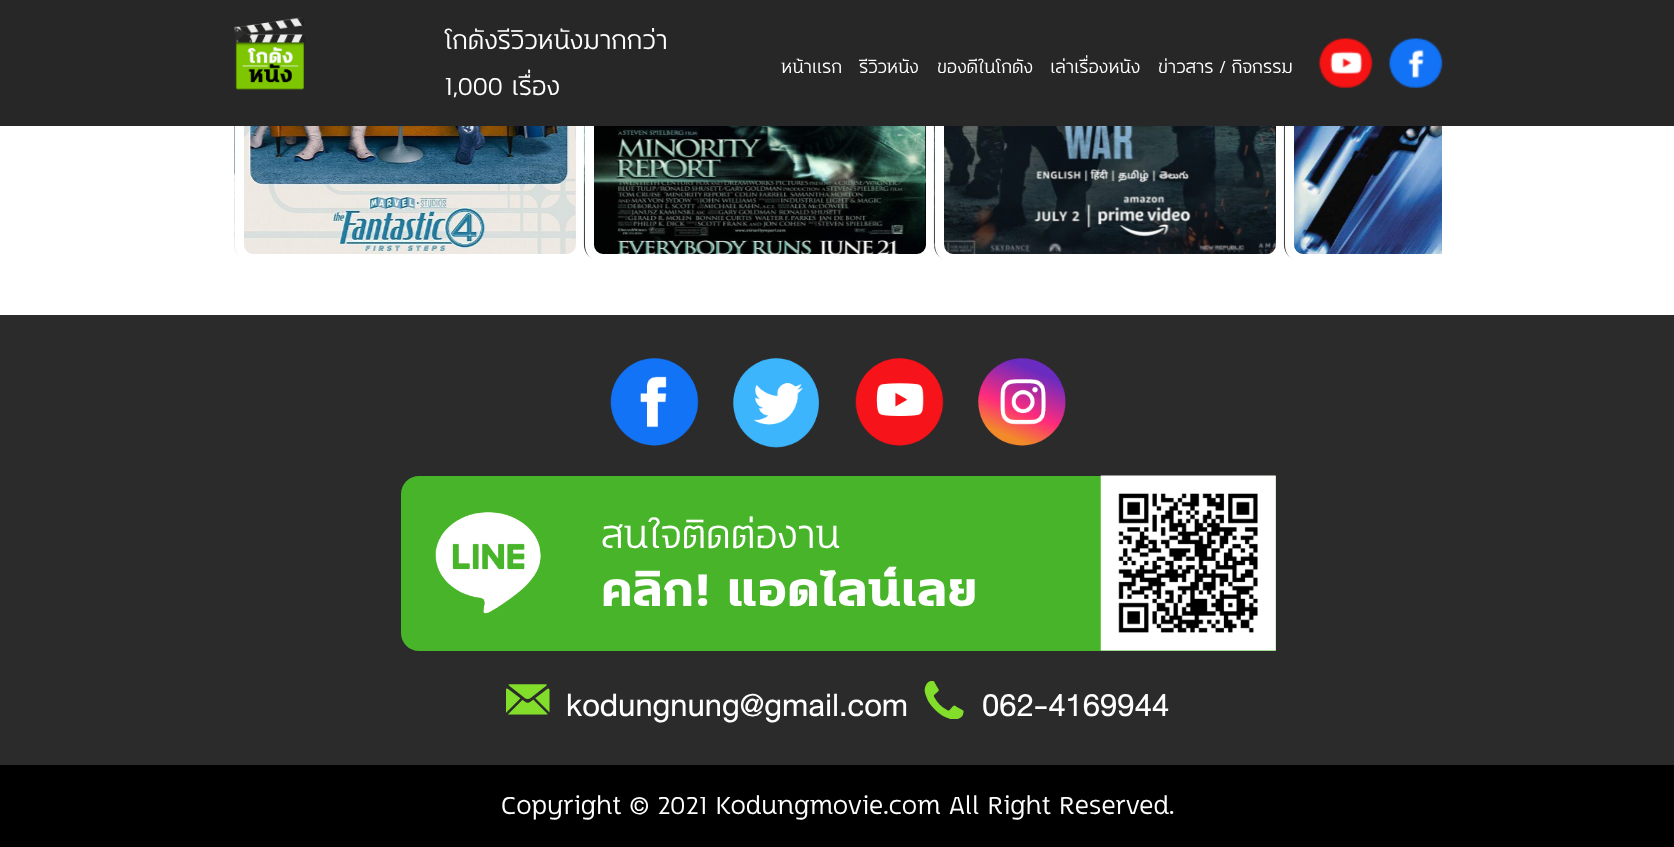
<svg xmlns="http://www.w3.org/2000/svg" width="1674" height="847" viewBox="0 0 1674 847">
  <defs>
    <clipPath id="clip1"><path d="M235 0h1207v263H235z"/></clipPath>
  </defs>
  <rect width="100%" height="100%" fill="#fff"/>
  <image x="234" y="126" width="342" height="135" href="img/1.png"/>
  <rect x="239.5" y="-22.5" width="341" height="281" rx="13.5" fill="none" stroke="#fff" stroke-width="9"/>
  <image x="583" y="126" width="343" height="135" href="img/2.png"/>
  <rect x="589.5" y="-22.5" width="341" height="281" rx="13.5" fill="none" stroke="#fff" stroke-width="9"/>
  <image x="933" y="126" width="343" height="135" href="img/3.png"/>
  <rect x="939.5" y="-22.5" width="341" height="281" rx="13.5" fill="none" stroke="#fff" stroke-width="9"/>
  <image x="1283" y="126" width="159" height="135" href="img/4.png"/>
  <g clip-path="url(#clip1)">
    <rect x="1289.5" y="-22.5" width="341" height="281" rx="13.5" fill="none" stroke="#fff" stroke-width="9"/>
  </g>
  <path d="M0 0h1674v126H0z" fill="#272727"/>
  <image x="233" y="17" width="72" height="73" href="img/5.png"/>
  <image x="1318" y="37" width="55" height="51" href="img/6.png"/>
  <image x="1388" y="37" width="55" height="51" href="img/7.png"/>
  <path d="M0 315h1674v450H0z" fill="#2b2b2b"/>
  <image x="610" y="358" width="89" height="88" href="img/8.png"/>
  <image x="733" y="358" width="86" height="90" href="img/9.png"/>
  <image x="855" y="358" width="89" height="88" href="img/10.png"/>
  <image x="978" y="358" width="88" height="88" href="img/11.png"/>
  <path d="M419 476H1276V651H419C409 651 401 643 401 633V494C401 484 409 476 419 476Z" fill="#47b429"/>
  <image x="435" y="512" width="106" height="102" href="img/12.png"/>
  <image x="1100" y="475" width="176" height="176" href="img/13.png"/>
  <image x="506" y="684" width="44" height="31" href="img/14.png"/>
  <image x="924" y="681" width="40" height="38" href="img/15.png"/>
  <path d="M0 765h1674v82H0z" fill="#000"/>
  <g font-family="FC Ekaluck" font-size="35" font-weight="300" fill="#fff">
    <text x="444" y="49">โกดังรีวิวหนังมากกว่า</text>
    <text x="444" y="95">1,000 เรื่อง</text>
  </g>
  <g font-family="FC Ekaluck" font-size="24.5" font-weight="300" fill="#fff">
    <text x="781" y="73">หน้าแรก</text>
    <text x="859" y="73">รีวิวหนัง</text>
    <text x="937" y="73">ของดีในโกดัง</text>
    <text x="1050" y="73">เล่าเรื่องหนัง</text>
    <text x="1158" y="73">ข่าวสาร / กิจกรรม</text>
  </g>
  <text x="601" y="548" font-family="FC Ekaluck" font-size="52.5" font-weight="300" fill="#fff">สนใจติดต่องาน</text>
  <text x="601" y="606" font-family="FC Ekaluck" font-size="63" font-weight="bold" fill="#fff">คลิก! แอดไลน์เลย</text>
  <g font-family="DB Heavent" font-size="45.5" fill="#fff">
    <text x="566" y="716">kodungnung@gmail.com</text>
    <text x="982" y="716">062-4169944</text>
  </g>
  <text x="501" y="814" font-family="FC Ekaluck" font-size="35" font-weight="300" fill="#fff">Copyright</text>
  <text x="630" y="814" font-family="DB Heavent" font-size="35" fill="#fff">©</text>
  <text x="657" y="814" font-family="FC Ekaluck" font-size="35" font-weight="300" fill="#fff">2021 Kodungmovie.com All Right Reserved.</text>
</svg>
